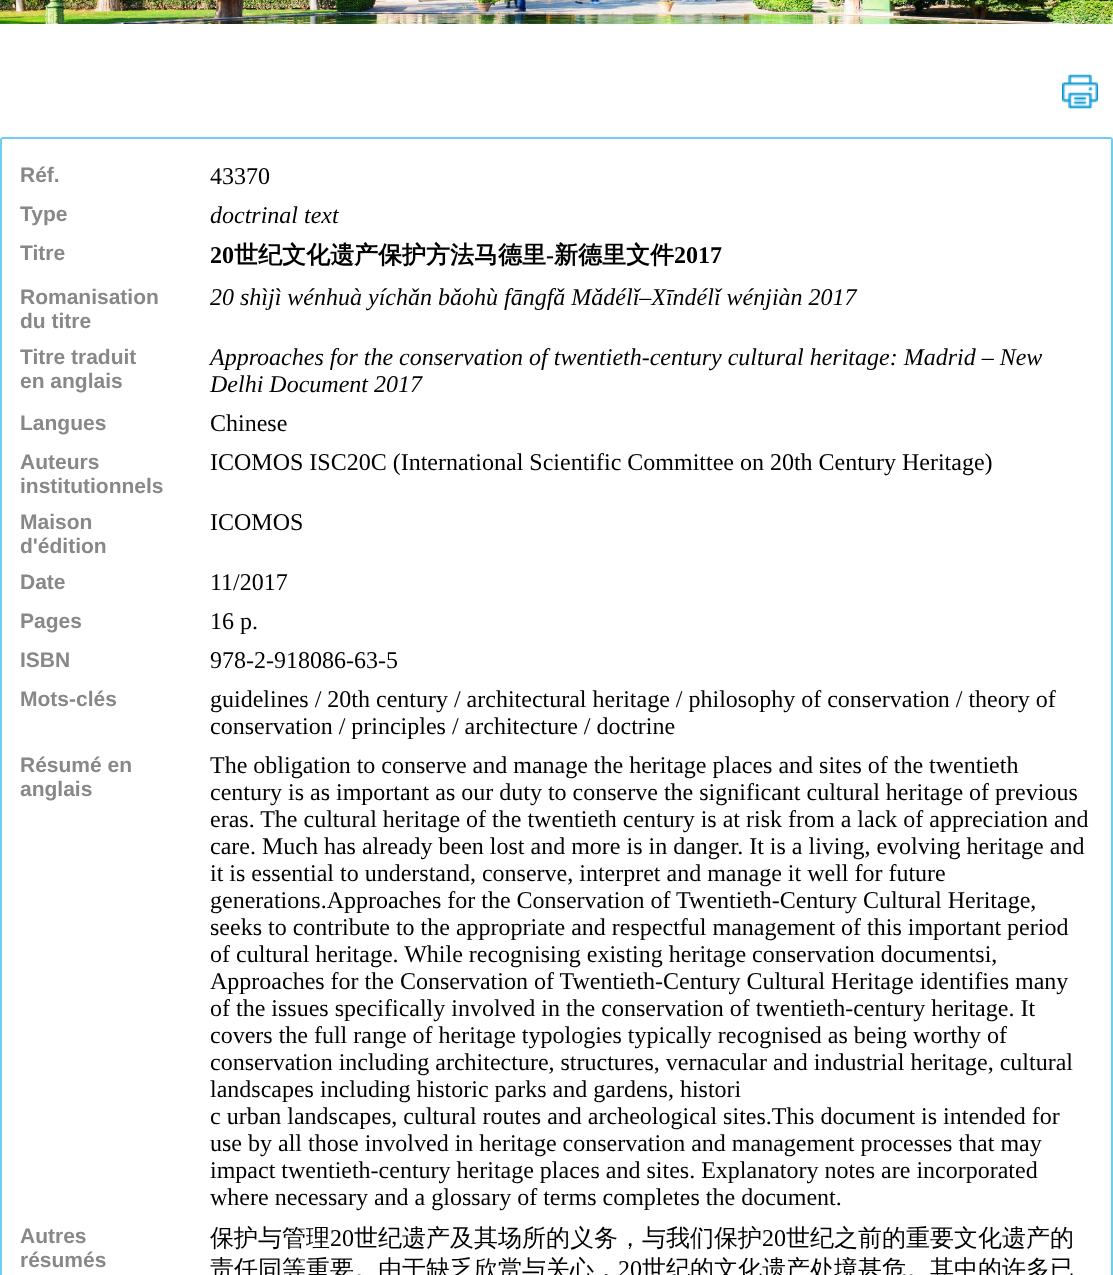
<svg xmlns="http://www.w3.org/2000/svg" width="1113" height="1275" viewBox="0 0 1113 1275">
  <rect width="100%" height="100%" fill="#fff"/>
  <image x="0" y="0" width="1113" height="24" href="img/1.png"/>
  <image x="1062" y="73" width="36" height="37" href="img/2.png"/>
  <rect x="1" y="138" width="1111" height="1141" rx="2" fill="none" stroke="#70cef2" stroke-width="2"/>
  <text x="20" y="182" font-family="Liberation Sans" font-size="21" font-weight="bold" fill="#888">Réf.</text>
  <text x="210" y="184" font-family="Liberation Serif" font-size="24" fill="#000">43370</text>
  <text x="20" y="221" font-family="Liberation Sans" font-size="21" font-weight="bold" fill="#888">Type</text>
  <text x="210" y="223" font-family="Liberation Serif" font-size="24" font-style="italic" fill="#000">doctrinal text</text>
  <text x="20" y="260" font-family="Liberation Sans" font-size="21" font-weight="bold" fill="#888">Titre</text>
  <text x="210" y="263" font-family="Liberation Serif" font-size="24" font-weight="bold" fill="#000">20</text>
  <text x="234" y="263" font-family="WenQuanYi Zen Hei" font-size="24" font-weight="bold" fill="#000">世纪文化遗产保护方法马德里</text>
  <text x="546" y="263" font-family="Liberation Serif" font-size="24" font-weight="bold" fill="#000">-</text>
  <text x="554" y="263" font-family="WenQuanYi Zen Hei" font-size="24" font-weight="bold" fill="#000">新德里文件</text>
  <text x="674" y="263" font-family="Liberation Serif" font-size="24" font-weight="bold" fill="#000">2017</text>
  <g font-family="Liberation Sans" font-size="21" font-weight="bold" fill="#888">
    <text x="20" y="304">Romanisation</text>
    <text x="20" y="328">du titre</text>
  </g>
  <text x="210" y="305" font-family="Liberation Serif" font-size="24" font-style="italic" fill="#000">20 shìjì wénhuà yíchǎn bǎohù fāngfǎ Mǎdélǐ–Xīndélǐ wénjiàn 2017</text>
  <g font-family="Liberation Sans" font-size="21" font-weight="bold" fill="#888">
    <text x="20" y="364">Titre traduit</text>
    <text x="20" y="388">en anglais</text>
  </g>
  <g font-family="Liberation Serif" font-size="24" font-style="italic" fill="#000">
    <text x="210" y="365">Approaches for the conservation of twentieth-century cultural heritage: Madrid – New</text>
    <text x="210" y="392">Delhi Document 2017</text>
  </g>
  <text x="20" y="430" font-family="Liberation Sans" font-size="21" font-weight="bold" fill="#888">Langues</text>
  <text x="210" y="431" font-family="Liberation Serif" font-size="24" fill="#000">Chinese</text>
  <g font-family="Liberation Sans" font-size="21" font-weight="bold" fill="#888">
    <text x="20" y="469">Auteurs</text>
    <text x="20" y="493">institutionnels</text>
  </g>
  <text x="210" y="470" font-family="Liberation Serif" font-size="24" fill="#000">ICOMOS ISC20C (International Scientific Committee on 20th Century Heritage)</text>
  <g font-family="Liberation Sans" font-size="21" font-weight="bold" fill="#888">
    <text x="20" y="529">Maison</text>
    <text x="20" y="553">d'édition</text>
  </g>
  <text x="210" y="530" font-family="Liberation Serif" font-size="24" fill="#000">ICOMOS</text>
  <text x="20" y="589" font-family="Liberation Sans" font-size="21" font-weight="bold" fill="#888">Date</text>
  <text x="210" y="590" font-family="Liberation Serif" font-size="24" fill="#000">11/2017</text>
  <text x="20" y="628" font-family="Liberation Sans" font-size="21" font-weight="bold" fill="#888">Pages</text>
  <text x="210" y="629" font-family="Liberation Serif" font-size="24" fill="#000">16 p.</text>
  <text x="20" y="667" font-family="Liberation Sans" font-size="21" font-weight="bold" fill="#888">ISBN</text>
  <text x="210" y="668" font-family="Liberation Serif" font-size="24" fill="#000">978-2-918086-63-5</text>
  <text x="20" y="706" font-family="Liberation Sans" font-size="21" font-weight="bold" fill="#888">Mots-clés</text>
  <g font-family="Liberation Serif" font-size="24" fill="#000">
    <text x="210" y="707">guidelines / 20th century / architectural heritage / philosophy of conservation / theory of</text>
    <text x="210" y="734">conservation / principles / architecture / doctrine</text>
  </g>
  <g font-family="Liberation Sans" font-size="21" font-weight="bold" fill="#888">
    <text x="20" y="772">Résumé en</text>
    <text x="20" y="796">anglais</text>
  </g>
  <g font-family="Liberation Serif" font-size="24" fill="#000">
    <text x="210" y="773">The obligation to conserve and manage the heritage places and sites of the twentieth</text>
    <text x="210" y="800">century is as important as our duty to conserve the significant cultural heritage of previous</text>
    <text x="210" y="827">eras. The cultural heritage of the twentieth century is at risk from a lack of appreciation and</text>
    <text x="210" y="854">care. Much has already been lost and more is in danger. It is a living, evolving heritage and</text>
    <text x="210" y="881">it is essential to understand, conserve, interpret and manage it well for future</text>
    <text x="210" y="908">generations.Approaches for the Conservation of Twentieth‐Century Cultural Heritage,</text>
    <text x="210" y="935">seeks to contribute to the appropriate and respectful management of this important period</text>
    <text x="210" y="962">of cultural heritage. While recognising existing heritage conservation documentsi,</text>
    <text x="210" y="989">Approaches for the Conservation of Twentieth-Century Cultural Heritage identifies many</text>
    <text x="210" y="1016">of the issues specifically involved in the conservation of twentieth‐century heritage. It</text>
    <text x="210" y="1043">covers the full range of heritage typologies typically recognised as being worthy of</text>
    <text x="210" y="1070">conservation including architecture, structures, vernacular and industrial heritage, cultural</text>
    <text x="210" y="1097">landscapes including historic parks and gardens, histori</text>
    <text x="210" y="1124">c urban landscapes, cultural routes and archeological sites.This document is intended for</text>
    <text x="210" y="1151">use by all those involved in heritage conservation and management processes that may</text>
    <text x="210" y="1178">impact twentieth-century heritage places and sites. Explanatory notes are incorporated</text>
    <text x="210" y="1205">where necessary and a glossary of terms completes the document.</text>
  </g>
  <g font-family="Liberation Sans" font-size="21" font-weight="bold" fill="#888">
    <text x="20" y="1243">Autres</text>
    <text x="20" y="1267">résumés</text>
  </g>
  <text x="210" y="1246" font-family="WenQuanYi Zen Hei" font-size="24" font-weight="500" fill="#000">保护与管理</text>
  <text x="330" y="1246" font-family="Liberation Serif" font-size="24" fill="#000">20</text>
  <text x="354" y="1246" font-family="WenQuanYi Zen Hei" font-size="24" font-weight="500" fill="#000">世纪遗产及其场所的义务，与我们保护</text>
  <text x="762" y="1246" font-family="Liberation Serif" font-size="24" fill="#000">20</text>
  <g font-family="WenQuanYi Zen Hei" font-size="24" font-weight="500" fill="#000">
    <text x="786" y="1246">世纪之前的重要文化遗产的</text>
    <text x="210" y="1277">责任同等重要。由于缺乏欣赏与关心，</text>
  </g>
  <text x="618" y="1277" font-family="Liberation Serif" font-size="24" fill="#000">20</text>
  <text x="642" y="1277" font-family="WenQuanYi Zen Hei" font-size="24" font-weight="500" fill="#000">世纪的文化遗产处境甚危。其中的许多已</text>
</svg>
